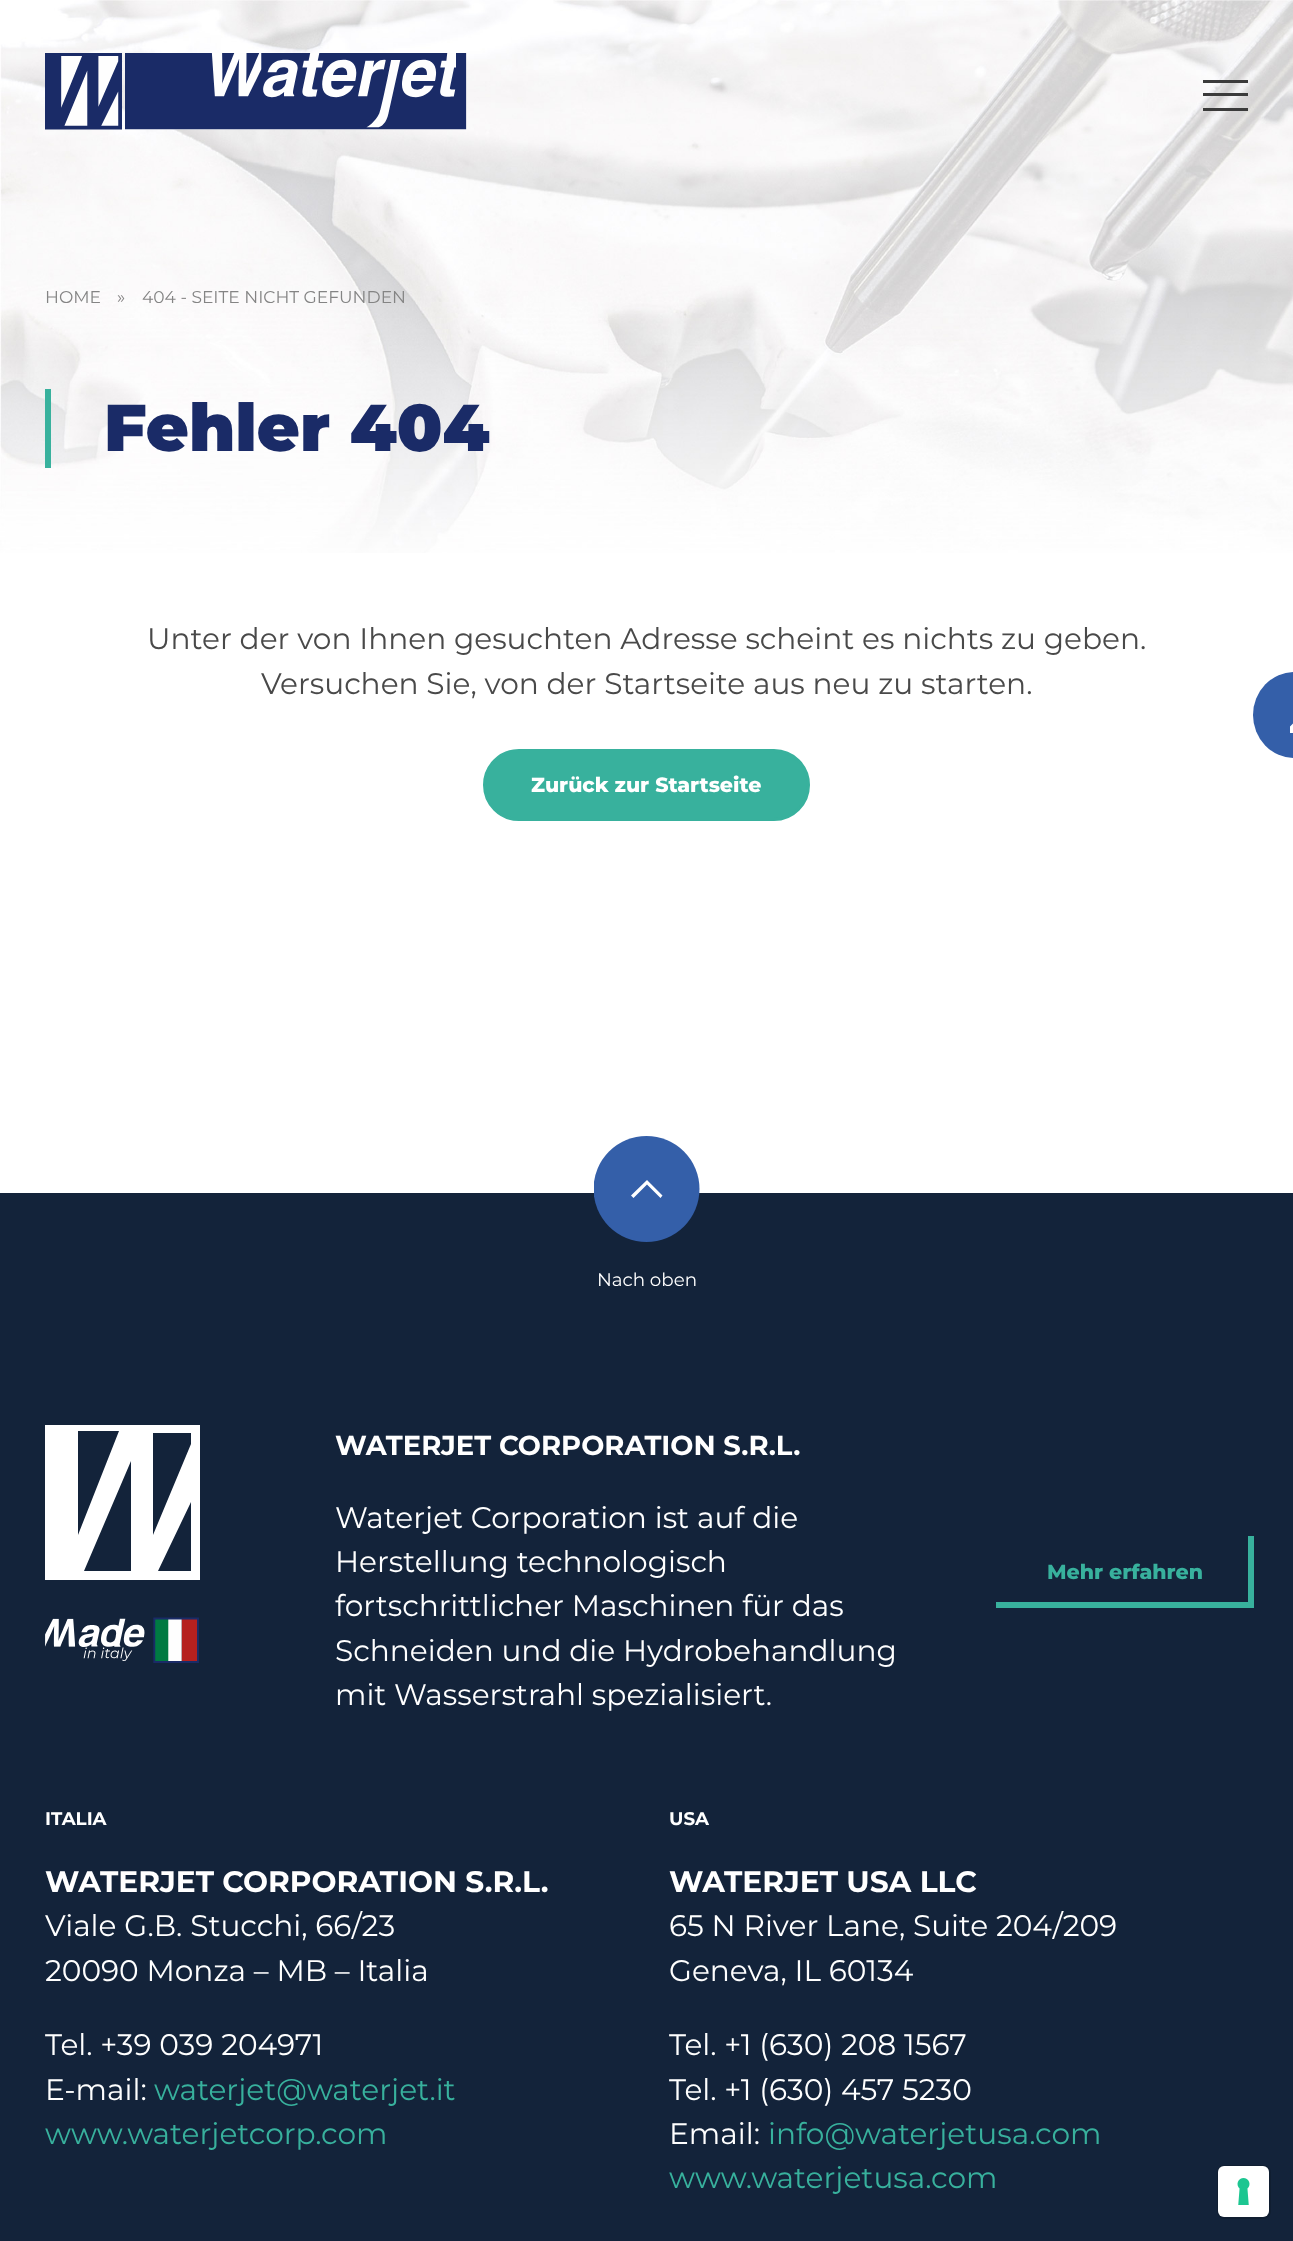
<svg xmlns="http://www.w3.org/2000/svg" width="1293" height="2241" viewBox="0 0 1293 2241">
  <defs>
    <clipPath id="clip1"><path d="M594 1136h107v106H594z"/></clipPath>
  </defs>
  <rect width="100%" height="100%" fill="#fff"/>
  <image x="0" y="0" width="1293" height="553" href="img/1.png"/>
  <image x="45" y="53" width="422" height="77" href="img/2.png"/>
  <path d="M1203 80h45v3H1203z" fill="#3b3b3b"/>
  <path d="M1203 93h45v3H1203z" fill="#3b3b3b"/>
  <path d="M1203 108h45v3H1203z" fill="#3b3b3b"/>
  <path d="M45 389h6v79H45z" fill="#38b19d"/>
  <rect x="484.5" y="750.5" width="324" height="69" rx="34.5" fill="#38b19d" stroke="#38b19d" stroke-width="3"/>
  <rect x="1253" y="672" width="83" height="86" rx="43" fill="#345fa9"/>
  <path d="M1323 706L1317 699.5C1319.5 697 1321 695.5 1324 698.5C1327 702 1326.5 702.5 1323 706ZM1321 708L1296.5 733H1290V726.5L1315 701.5Z" fill="#fff"/>
  <path d="M0 1193h1293v1048H0z" fill="#13233a"/>
  <g clip-path="url(#clip1)">
    <circle cx="646.5" cy="1189" r="53" fill="#345fa9"/>
  </g>
  <path d="M631 1195.5L647 1180L662.5 1195.5L660.5 1198L647 1184.5L633.5 1198Z" fill="#fff"/>
  <path d="M45 1580H200V1425H45ZM153 1433H191V1444L153 1535ZM78 1431H119L78 1535ZM131 1461V1571H84ZM191 1502V1571H158Z" fill="#fff" fill-rule="evenodd"/>
  <image x="45" y="1617" width="154" height="46" href="img/3.png"/>
  <path d="M1248 1536h6v72H1248z" fill="#38b19d"/>
  <path d="M996 1602h258v6H996z" fill="#38b19d"/>
  <rect x="1218" y="2166" width="52" height="52" rx="7" fill="none" stroke="#101e31" stroke-width="2"/>
  <rect x="1218" y="2166" width="51" height="51" rx="6" fill="#fff"/>
  <image x="1237" y="2178" width="13" height="27" href="img/4.png"/>
  <g font-family="Montserrat" font-size="17.1" fill="#848484">
    <text x="45" y="303">HOME</text>
    <text x="117" y="303">»</text>
    <text x="142" y="303">404 - SEITE NICHT GEFUNDEN</text>
  </g>
  <text x="104" y="451" font-family="Montserrat" font-size="66" font-weight="900" fill="#1a2b67">Fehler 404</text>
  <g font-family="Montserrat" font-size="29.65" fill="#494949">
    <text x="147" y="649">Unter der von Ihnen gesuchten Adresse scheint es nichts zu geben.</text>
    <text x="261" y="694">Versuchen Sie, von der Startseite aus neu zu starten.</text>
  </g>
  <text x="531" y="792" font-family="Montserrat" font-size="20.5" font-weight="800" fill="#fff">Zurück zur Startseite</text>
  <text x="597" y="1286" font-family="Montserrat" font-size="18.25" fill="#fff">Nach oben</text>
  <text x="335" y="1455" font-family="Montserrat" font-size="27.4" font-weight="bold" fill="#fff">WATERJET CORPORATION S.R.L.</text>
  <g font-family="Montserrat" font-size="29.65" fill="#fff">
    <text x="335" y="1528">Waterjet Corporation ist auf die</text>
    <text x="335" y="1572">Herstellung technologisch</text>
    <text x="335" y="1616">fortschrittlicher Maschinen für das</text>
    <text x="335" y="1661">Schneiden und die Hydrobehandlung</text>
    <text x="335" y="1705">mit Wasserstrahl spezialisiert.</text>
  </g>
  <text x="1047" y="1579" font-family="Montserrat" font-size="20.5" font-weight="800" fill="#38b19d">Mehr erfahren</text>
  <text x="45" y="1825" font-family="Montserrat" font-size="18.25" font-weight="bold" fill="#fff">ITALIA</text>
  <text x="45" y="1892" font-family="Montserrat" font-size="29.65" font-weight="bold" fill="#fff">WATERJET CORPORATION S.R.L.</text>
  <g font-family="Montserrat" font-size="29.65" fill="#fff">
    <text x="45" y="1936">Viale G.B. Stucchi, 66/23</text>
    <text x="45" y="1981">20090 Monza – MB – Italia</text>
    <text x="45" y="2055">Tel. +39 039 204971</text>
    <text x="45" y="2100">E-mail:</text>
  </g>
  <g font-family="Montserrat" font-size="29.65" fill="#38b19d">
    <text x="154" y="2100">waterjet@waterjet.it</text>
    <text x="45" y="2144">www.waterjetcorp.com</text>
  </g>
  <text x="669" y="1825" font-family="Montserrat" font-size="18.25" font-weight="bold" fill="#fff">USA</text>
  <text x="669" y="1892" font-family="Montserrat" font-size="29.65" font-weight="bold" fill="#fff">WATERJET USA LLC</text>
  <g font-family="Montserrat" font-size="29.65" fill="#fff">
    <text x="669" y="1936">65 N River Lane, Suite 204/209</text>
    <text x="669" y="1981">Geneva, IL 60134</text>
    <text x="669" y="2055">Tel. +1 (630) 208 1567</text>
    <text x="669" y="2100">Tel. +1 (630) 457 5230</text>
    <text x="669" y="2144">Email:</text>
  </g>
  <g font-family="Montserrat" font-size="29.65" fill="#38b19d">
    <text x="768" y="2144">info@waterjetusa.com</text>
    <text x="669" y="2188">www.waterjetusa.com</text>
  </g>
</svg>
